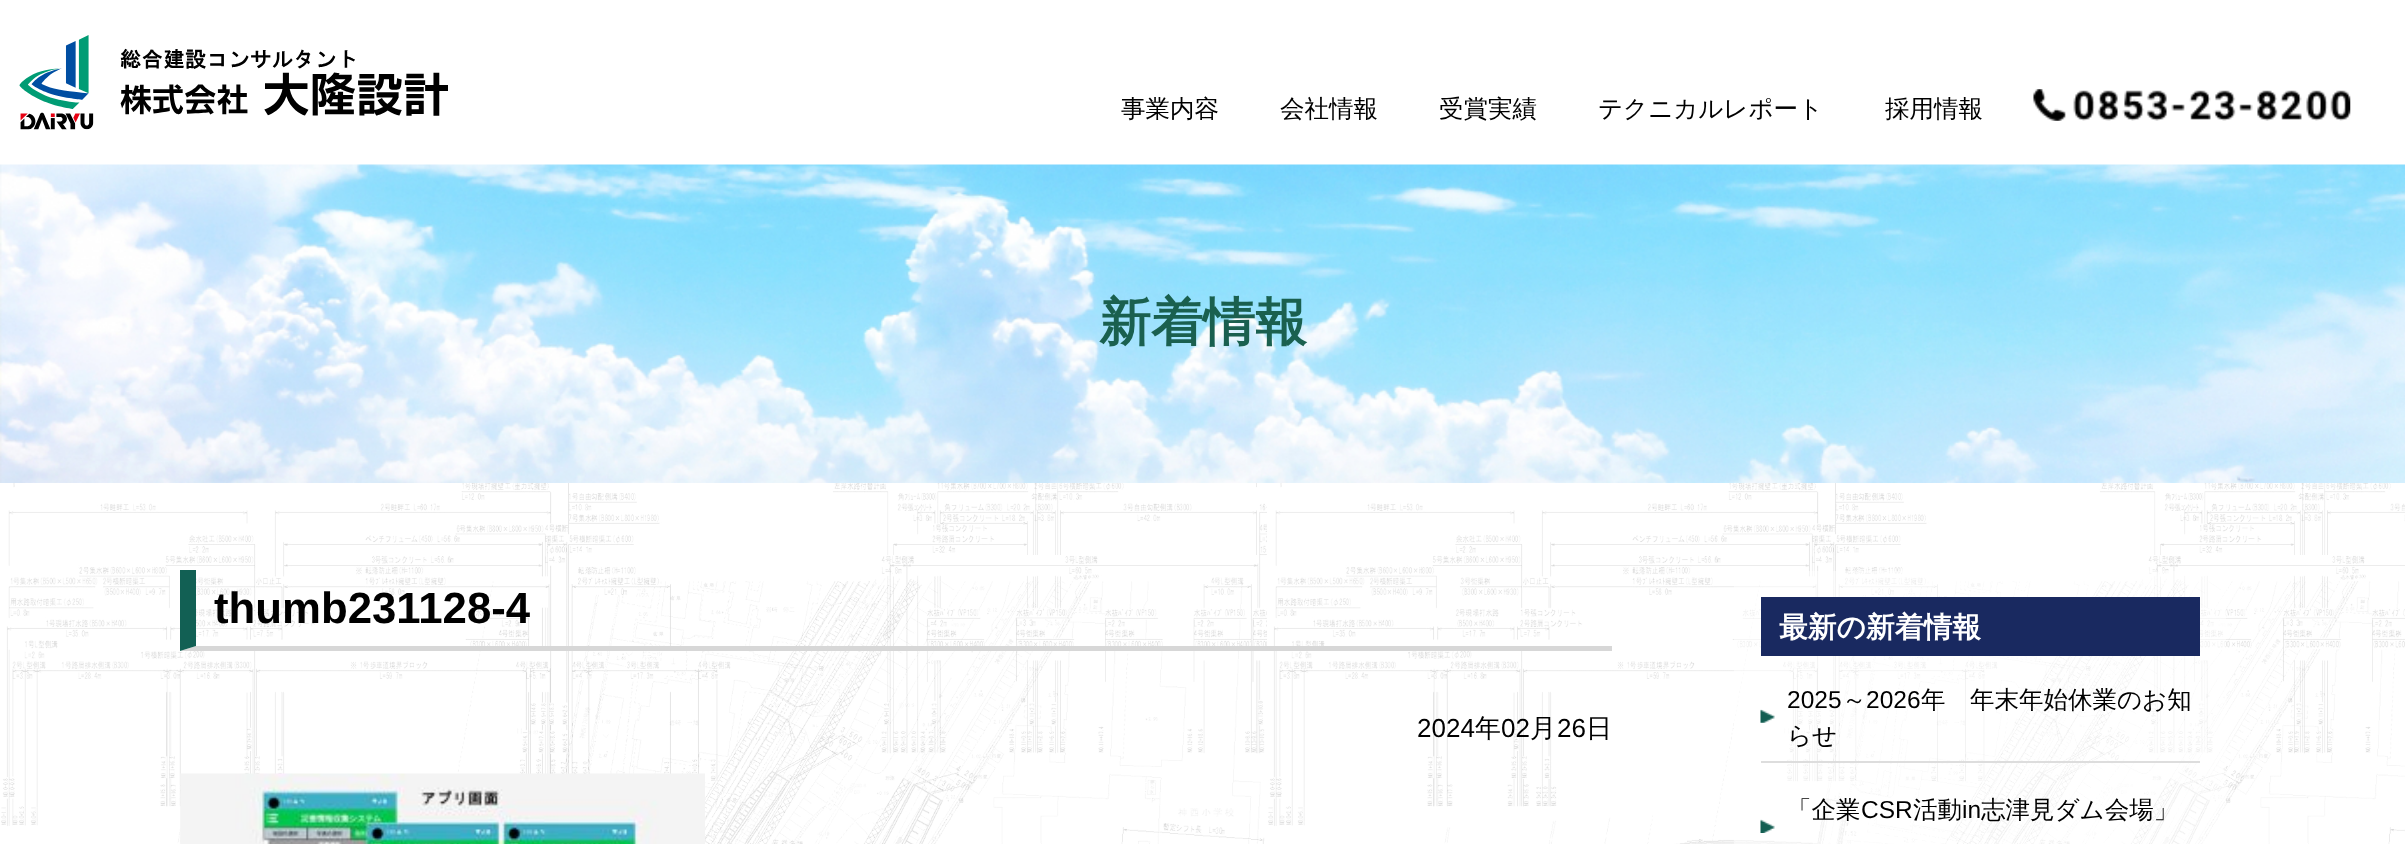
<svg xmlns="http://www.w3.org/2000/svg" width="2405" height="844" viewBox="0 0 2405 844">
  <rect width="100%" height="100%" fill="#fff"/>
  <image x="19" y="35" width="429" height="95" href="img/1.png"/>
  <image x="2033" y="89" width="318" height="32" href="img/2.png"/>
  <image x="0" y="164" width="2405" height="319" href="img/3.png"/>
  <image x="1" y="483" width="2404" height="361" href="img/4.png"/>
  <path d="M1612 651H180L196 646H1612Z" fill="#d7d7d7"/>
  <path d="M180 651V570H196V646Z" fill="#126054"/>
  <image x="180" y="773" width="525" height="71" href="img/5.png"/>
  <path d="M1734 571h492v273H1734z" fill="#ffffff80"/>
  <path d="M1761 597h439v59H1761z" fill="#192960"/>
  <image x="1760" y="709" width="15" height="14" href="img/6.png"/>
  <path d="M1761 761h439v2H1761z" fill="#ddd"/>
  <image x="1760" y="819" width="15" height="14" href="img/7.png"/>
  <g font-family="WenQuanYi Zen Hei" font-size="24.5" font-weight="500" fill="#000">
    <text x="1121" y="117">事業内容</text>
    <text x="1280" y="117">会社情報</text>
    <text x="1439" y="117">受賞実績</text>
    <text x="1598" y="117">テクニカルレポート</text>
    <text x="1885" y="117">採用情報</text>
  </g>
  <text x="1099" y="340" font-family="WenQuanYi Zen Hei" font-size="52" font-weight="bold" fill="#1a604f">新着情報</text>
  <text x="214" y="623" font-family="Liberation Sans" font-size="43.75" font-weight="bold" fill="#000">thumb231128-4</text>
  <text x="1417" y="737" font-family="Liberation Sans" font-size="26" fill="#000">2024</text>
  <text x="1475" y="737" font-family="WenQuanYi Zen Hei" font-size="26" font-weight="500" fill="#000">年</text>
  <text x="1501" y="737" font-family="Liberation Sans" font-size="26" fill="#000">02</text>
  <text x="1530" y="737" font-family="WenQuanYi Zen Hei" font-size="26" font-weight="500" fill="#000">月</text>
  <text x="1557" y="737" font-family="Liberation Sans" font-size="26" fill="#000">26</text>
  <text x="1586" y="737" font-family="WenQuanYi Zen Hei" font-size="26" font-weight="500" fill="#000">日</text>
  <text x="1779" y="637" font-family="WenQuanYi Zen Hei" font-size="28.75" font-weight="bold" fill="#fff">最新の新着情報</text>
  <text x="1787" y="708" font-family="Liberation Sans" font-size="24.5" fill="#000">2025</text>
  <text x="1842" y="708" font-family="WenQuanYi Zen Hei" font-size="24.5" font-weight="500" fill="#000">～</text>
  <text x="1866" y="708" font-family="Liberation Sans" font-size="24.5" fill="#000">2026</text>
  <g font-family="WenQuanYi Zen Hei" font-size="24.5" font-weight="500" fill="#000">
    <text x="1921" y="708">年　年末年始休業のお知</text>
    <text x="1787" y="744">らせ</text>
    <text x="1787" y="818">「企業</text>
  </g>
  <text x="1861" y="818" font-family="Liberation Sans" font-size="24.5" fill="#000">CSR</text>
  <text x="1913" y="818" font-family="WenQuanYi Zen Hei" font-size="24.5" font-weight="500" fill="#000">活動</text>
  <text x="1962" y="818" font-family="Liberation Sans" font-size="24.5" fill="#000">in</text>
  <text x="1981" y="818" font-family="WenQuanYi Zen Hei" font-size="24.5" font-weight="500" fill="#000">志津見ダム会場」</text>
</svg>
